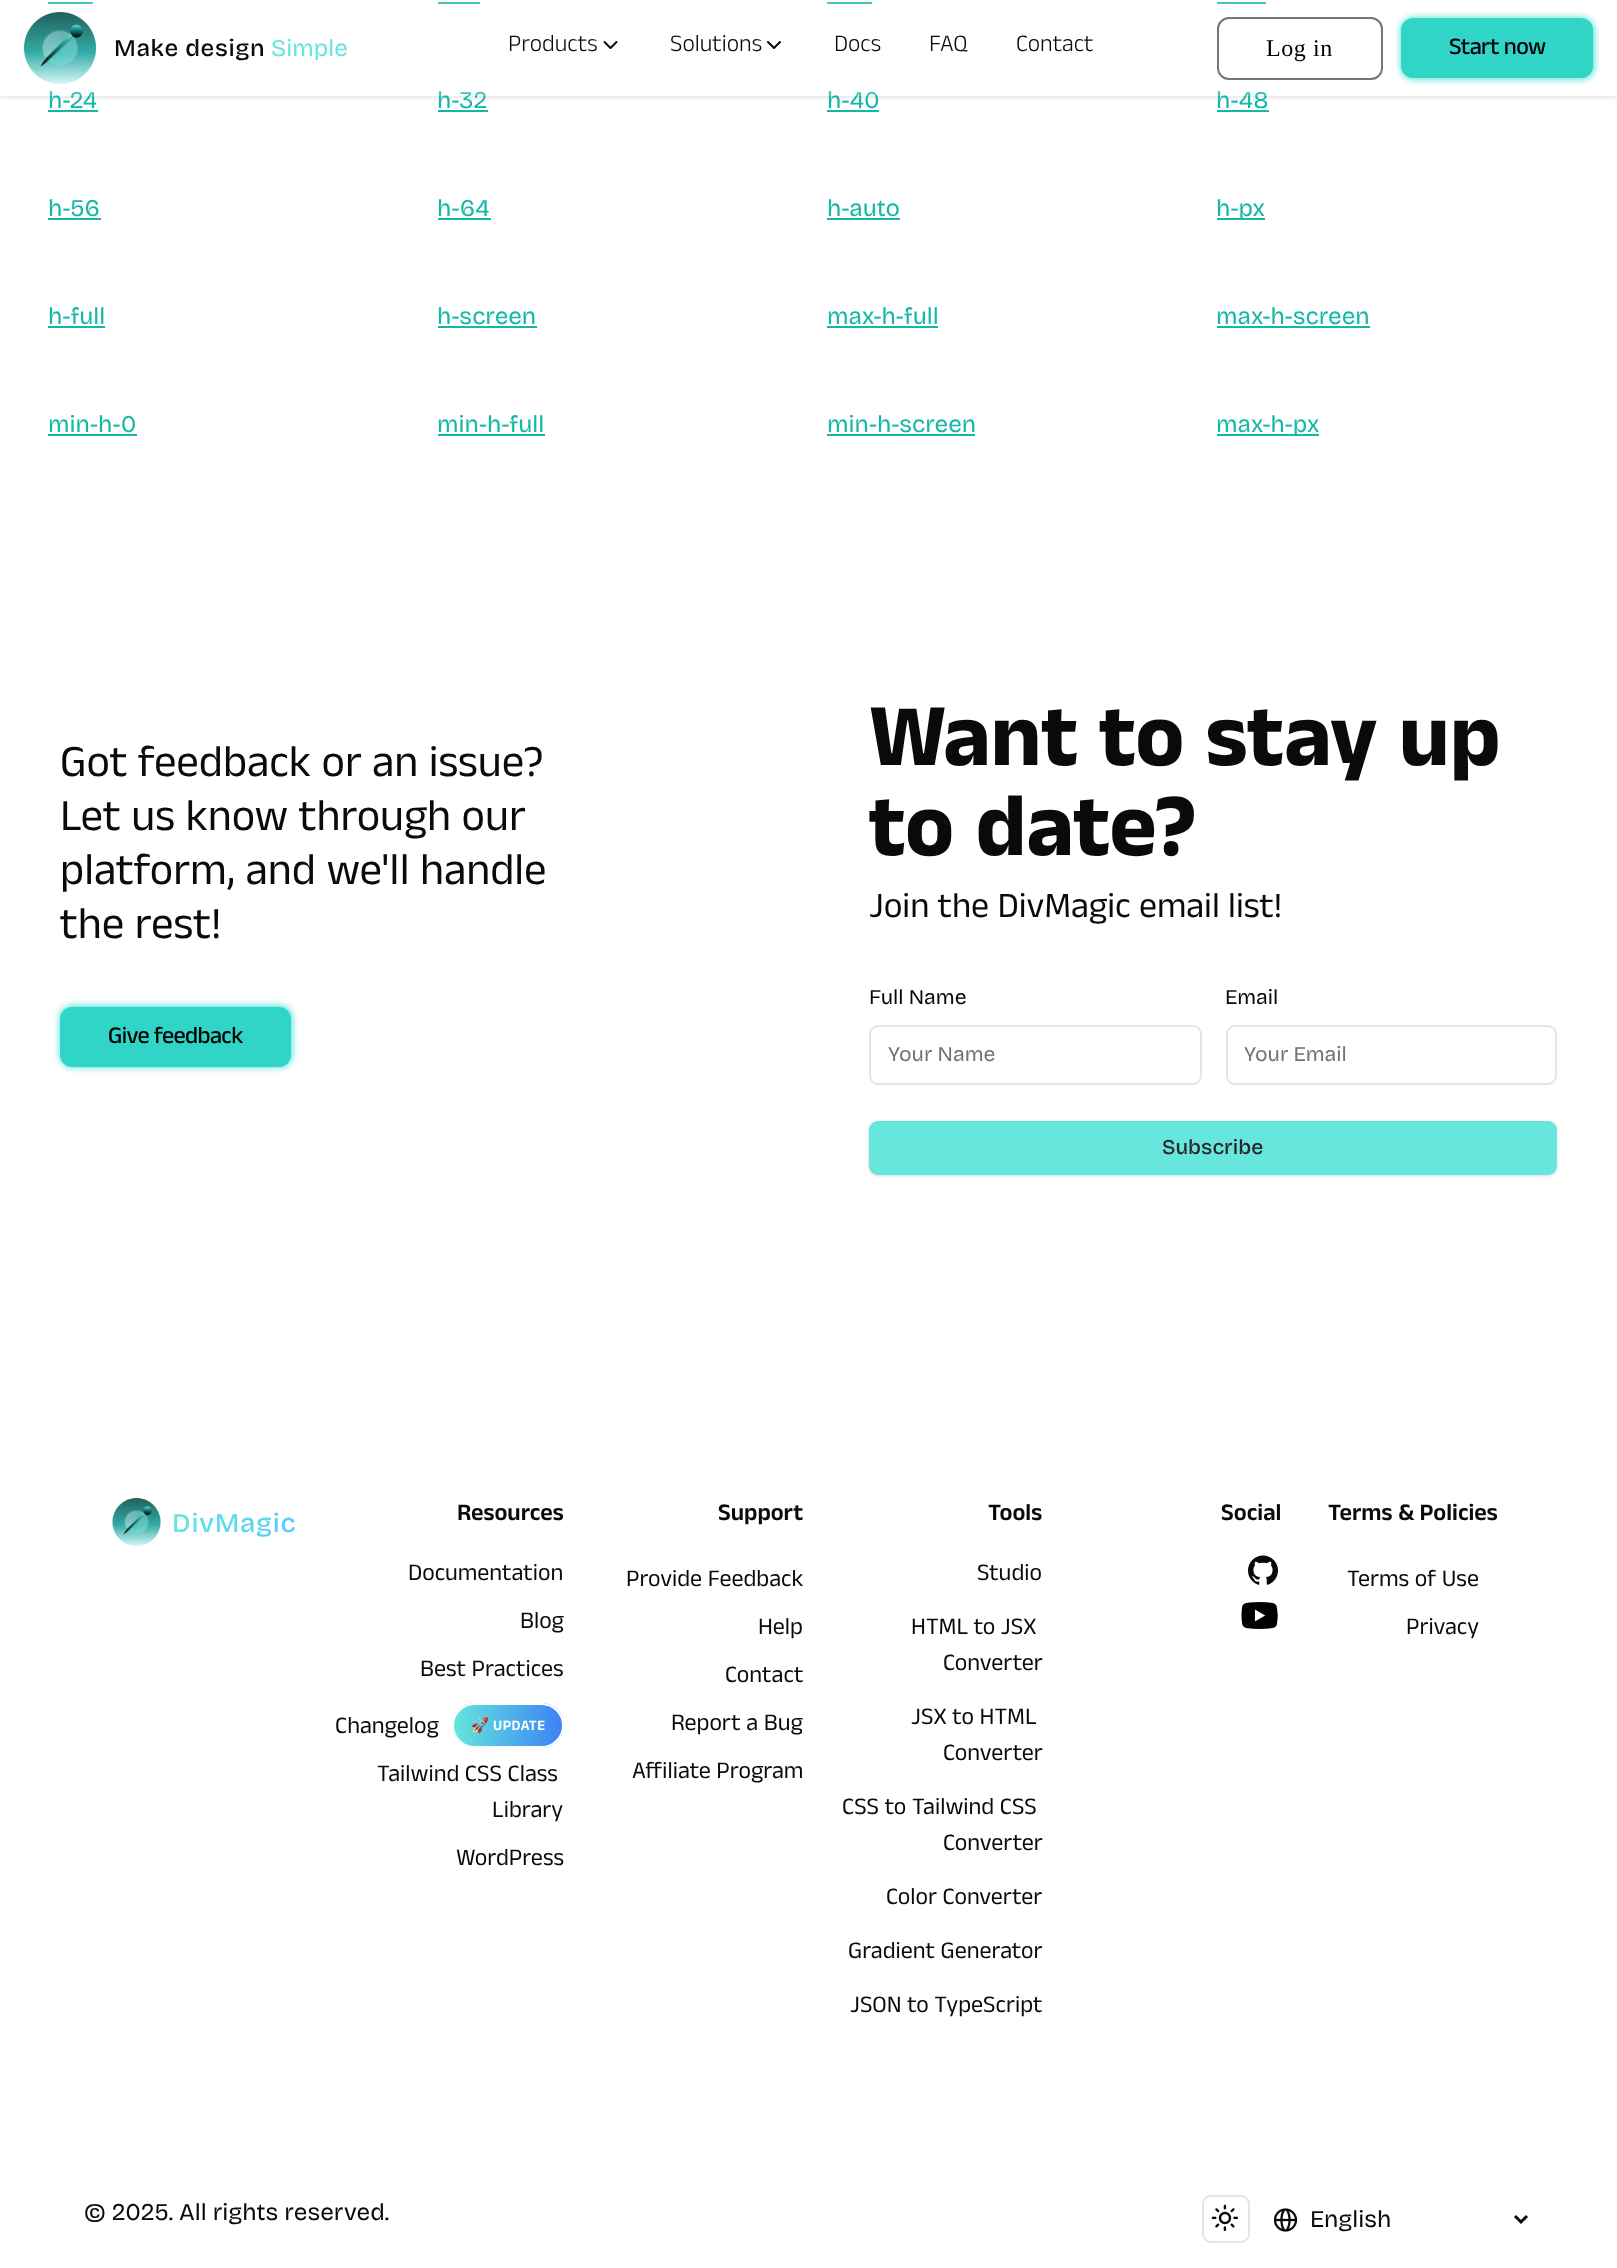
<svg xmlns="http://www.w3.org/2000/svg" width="1617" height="2268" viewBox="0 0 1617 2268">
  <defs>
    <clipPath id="clip1"><path d="M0 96h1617v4H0z"/></clipPath>
    <clipPath id="clip2"><rect x="452" y="1703" width="112" height="45" rx="22.5"/></clipPath>
    <linearGradient id="g1" gradientUnits="userSpaceOnUse" x1="453" y1="1725" x2="563" y2="1725"><stop offset="0" stop-color="#66e6dc"/><stop offset="1" stop-color="#3b82f6"/></linearGradient>
    <linearGradient id="g2" gradientUnits="userSpaceOnUse" x1="172" y1="1523" x2="295" y2="1523"><stop offset="0" stop-color="#66e6dc"/><stop offset="1" stop-color="#5acbff"/></linearGradient>
  </defs>
  <rect width="100%" height="100%" fill="#fff"/>
  <path d="M48 2h45v2H48z" fill="#14b8a6"/>
  <path d="M438 2h42v2H438z" fill="#14b8a6"/>
  <path d="M827 2h45v2H827z" fill="#14b8a6"/>
  <path d="M1217 2h49v2H1217z" fill="#14b8a6"/>
  <g clip-path="url(#clip1)">
    <path d="M0 2h1617v96H0z" fill="#0000001a" filter="blur(2px)"/>
  </g>
  <rect x="1400" y="17" width="195" height="63" rx="14" fill="#66e6dc" filter="blur(3px)"/>
  <rect x="1401" y="18" width="192" height="60" rx="12" fill="#30d5c8"/>
  <path d="M48 110h50v2H48z" fill="#14b8a6"/>
  <path d="M438 110h50v2H438z" fill="#14b8a6"/>
  <path d="M827 110h52v2H827z" fill="#14b8a6"/>
  <path d="M1217 110h52v2H1217z" fill="#14b8a6"/>
  <path d="M48 218h53v2H48z" fill="#14b8a6"/>
  <path d="M438 218h53v2H438z" fill="#14b8a6"/>
  <path d="M827 218h73v2H827z" fill="#14b8a6"/>
  <path d="M1217 218h48v2H1217z" fill="#14b8a6"/>
  <path d="M48 326h57v2H48z" fill="#14b8a6"/>
  <path d="M438 326h99v2H438z" fill="#14b8a6"/>
  <path d="M827 326h111v2H827z" fill="#14b8a6"/>
  <path d="M1217 326h153v2H1217z" fill="#14b8a6"/>
  <path d="M48 434h89v2H48z" fill="#14b8a6"/>
  <path d="M438 434h107v2H438z" fill="#14b8a6"/>
  <path d="M827 434h148v2H827z" fill="#14b8a6"/>
  <path d="M1217 434h102v2H1217z" fill="#14b8a6"/>
  <rect x="59" y="1005" width="234" height="63" rx="14" fill="#66e6dc" filter="blur(3px)"/>
  <rect x="60" y="1007" width="231" height="60" rx="12" fill="#30d5c8"/>
  <rect x="870" y="1026" width="331" height="58" rx="8" fill="none" stroke="#e5e5e5" stroke-width="2"/>
  <rect x="1227" y="1026" width="329" height="58" rx="8" fill="none" stroke="#e5e5e5" stroke-width="2"/>
  <rect x="870" y="1124" width="686" height="51" rx="8" fill="#0000001a" filter="blur(1.5px)"/>
  <rect x="869" y="1122" width="688" height="54" rx="9" fill="#0000001a" filter="blur(2px)"/>
  <rect x="869" y="1121" width="688" height="54" rx="9" fill="#66e6dc"/>
  <image x="112" y="1498" width="49" height="48" href="img/2.png"/>
  <g clip-path="url(#clip2)">
    <path d="M453 1703h110v45H453z" fill="url(#g1)"/>
  </g>
  <rect x="453" y="1704" width="110" height="43" rx="21.5" fill="none" stroke="#fff" stroke-width="2"/>
  <image x="1248" y="1555" width="30" height="30" href="img/3.png"/>
  <image x="1241" y="1602" width="37" height="27" href="img/4.png"/>
  <rect x="1203" y="2196" width="46" height="46" rx="8" fill="none" stroke="#e5e5e5" stroke-width="2"/>
  <image x="1211" y="2204" width="28" height="28" href="img/5.png"/>
  <image x="1274" y="2208" width="24" height="24" href="img/6.png"/>
  <path d="M1515 2216L1521 2222L1527 2216" fill="none" stroke="#0a0a0a" stroke-width="3"/>
  <text x="1449" y="54" font-family="Anek Telugu" font-size="24" font-weight="500" letter-spacing="-0.6" fill="#000">Start now</text>
  <g font-family="Bricolage Grotesque" font-size="24" fill="#14b8a6">
    <text x="48" y="108">h-24</text>
    <text x="437" y="108">h-32</text>
    <text x="827" y="108">h-40</text>
    <text x="1216" y="108">h-48</text>
  </g>
  <path d="M48 2h1219v94H48z" fill="#ffffff33"/>
  <rect x="1218" y="18" width="164" height="61" rx="11" fill="none" stroke="#757575" stroke-width="2"/>
  <text x="1266" y="56" font-family="Liberation Serif" font-size="24" letter-spacing="0.6" fill="#000">Log in</text>
  <path d="M768 42L774 48L780 42" fill="none" stroke="#0a0a0a" stroke-width="2" stroke-linecap="round" stroke-linejoin="round"/>
  <text x="670" y="51" font-family="Anek Telugu" font-size="24" font-weight="300" fill="#0a0a0a">Solutions</text>
  <path d="M604.5 42L610.5 48L616.5 42" fill="none" stroke="#0a0a0a" stroke-width="2" stroke-linecap="round" stroke-linejoin="round"/>
  <text x="508" y="51" font-family="Anek Telugu" font-size="24" font-weight="300" fill="#0a0a0a">Products</text>
  <text x="271" y="56" font-family="Bricolage Grotesque" font-size="24" fill="#66e6dc">Simple</text>
  <g font-family="Anek Telugu" font-size="24" font-weight="300" fill="#0a0a0a">
    <text x="1016" y="51">Contact</text>
    <text x="929" y="51">FAQ</text>
    <text x="834" y="51">Docs</text>
  </g>
  <text x="114" y="56" font-family="Bricolage Grotesque" font-size="24" font-weight="500" letter-spacing="0.6" fill="#0a0a0a">Make design</text>
  <image x="24" y="12" width="72" height="72" href="img/1.png"/>
  <g font-family="Bricolage Grotesque" font-size="24" fill="#14b8a6">
    <text x="48" y="216">h-56</text>
    <text x="437" y="216">h-64</text>
    <text x="827" y="216">h-auto</text>
    <text x="1216" y="216">h-px</text>
    <text x="48" y="324">h-full</text>
    <text x="437" y="324">h-screen</text>
    <text x="827" y="324">max-h-full</text>
    <text x="1216" y="324">max-h-screen</text>
    <text x="48" y="432">min-h-0</text>
    <text x="437" y="432">min-h-full</text>
    <text x="827" y="432">min-h-screen</text>
    <text x="1216" y="432">max-h-px</text>
  </g>
  <g font-family="Anek Telugu" font-size="45" fill="#0a0a0a">
    <text x="60" y="776">Got feedback or an issue?</text>
    <text x="60" y="830">Let us know through our</text>
    <text x="60" y="884">platform, and we'll handle</text>
    <text x="60" y="938">the rest!</text>
  </g>
  <text x="108" y="1043" font-family="Anek Telugu" font-size="24" font-weight="500" letter-spacing="-0.6" fill="#000">Give feedback</text>
  <g font-family="Anek Telugu" font-size="90" font-weight="bold" fill="#0a0a0a">
    <text x="869" y="765">Want to stay up</text>
    <text x="869" y="855">to date?</text>
  </g>
  <text x="869" y="917" font-family="Anek Telugu" font-size="36" fill="#0a0a0a">Join the DivMagic email list!</text>
  <text x="869" y="1004" font-family="Bricolage Grotesque" font-size="21" fill="#0a0a0a">Full Name</text>
  <text x="888" y="1061" font-family="Bricolage Grotesque" font-size="21" fill="#737373">Your Name</text>
  <text x="1225" y="1004" font-family="Bricolage Grotesque" font-size="21" fill="#0a0a0a">Email</text>
  <text x="1244" y="1061" font-family="Bricolage Grotesque" font-size="21" fill="#737373">Your Email</text>
  <text x="1162" y="1154" font-family="Bricolage Grotesque" font-size="21" font-weight="500" fill="#27272a">Subscribe</text>
  <text x="172" y="1532" font-family="Bricolage Grotesque" font-size="27" font-weight="500" letter-spacing="0.75" fill="url(#g2)">DivMagic</text>
  <text x="457" y="1520" font-family="Anek Telugu" font-size="24" font-weight="600" fill="#0a0a0a">Resources</text>
  <g font-family="Anek Telugu" font-size="24" fill="#0a0a0a">
    <text x="408" y="1580">Documentation</text>
    <text x="520" y="1628">Blog</text>
    <text x="420" y="1676">Best Practices</text>
    <text x="335" y="1733">Changelog</text>
  </g>
  <text x="471" y="1730" font-family="Noto Color Emoji" font-size="14.5" font-weight="bold" letter-spacing="0.5" fill="#fff">🚀</text>
  <text x="493" y="1730" font-family="Anek Telugu" font-size="14.5" font-weight="600" letter-spacing="0.5" fill="#fff">UPDATE</text>
  <g font-family="Anek Telugu" font-size="24" fill="#0a0a0a">
    <text x="377" y="1781">Tailwind CSS Class</text>
    <text x="492" y="1817">Library</text>
    <text x="456" y="1865">WordPress</text>
  </g>
  <text x="718" y="1520" font-family="Anek Telugu" font-size="24" font-weight="600" fill="#0a0a0a">Support</text>
  <g font-family="Anek Telugu" font-size="24" fill="#0a0a0a">
    <text x="626" y="1586">Provide Feedback</text>
    <text x="758" y="1634">Help</text>
    <text x="725" y="1682">Contact</text>
    <text x="671" y="1730">Report a Bug</text>
    <text x="632" y="1778">Affiliate Program</text>
  </g>
  <text x="988" y="1520" font-family="Anek Telugu" font-size="24" font-weight="600" fill="#0a0a0a">Tools</text>
  <g font-family="Anek Telugu" font-size="24" fill="#0a0a0a">
    <text x="977" y="1580">Studio</text>
    <text x="911" y="1634">HTML to JSX</text>
    <text x="943" y="1670">Converter</text>
    <text x="911" y="1724">JSX to HTML</text>
    <text x="943" y="1760">Converter</text>
    <text x="842" y="1814">CSS to Tailwind CSS</text>
    <text x="943" y="1850">Converter</text>
    <text x="886" y="1904">Color Converter</text>
    <text x="848" y="1958">Gradient Generator</text>
    <text x="850" y="2012">JSON to TypeScript</text>
  </g>
  <g font-family="Anek Telugu" font-size="24" font-weight="600" fill="#0a0a0a">
    <text x="1221" y="1520">Social</text>
    <text x="1328" y="1520">Terms &amp; Policies</text>
  </g>
  <g font-family="Anek Telugu" font-size="24" fill="#0a0a0a">
    <text x="1347" y="1586">Terms of Use</text>
    <text x="1406" y="1634">Privacy</text>
  </g>
  <g font-family="Bricolage Grotesque" font-size="24" fill="#0a0a0a">
    <text x="84" y="2220">© 2025. All rights reserved.</text>
    <text x="1310" y="2227">English</text>
  </g>
</svg>
